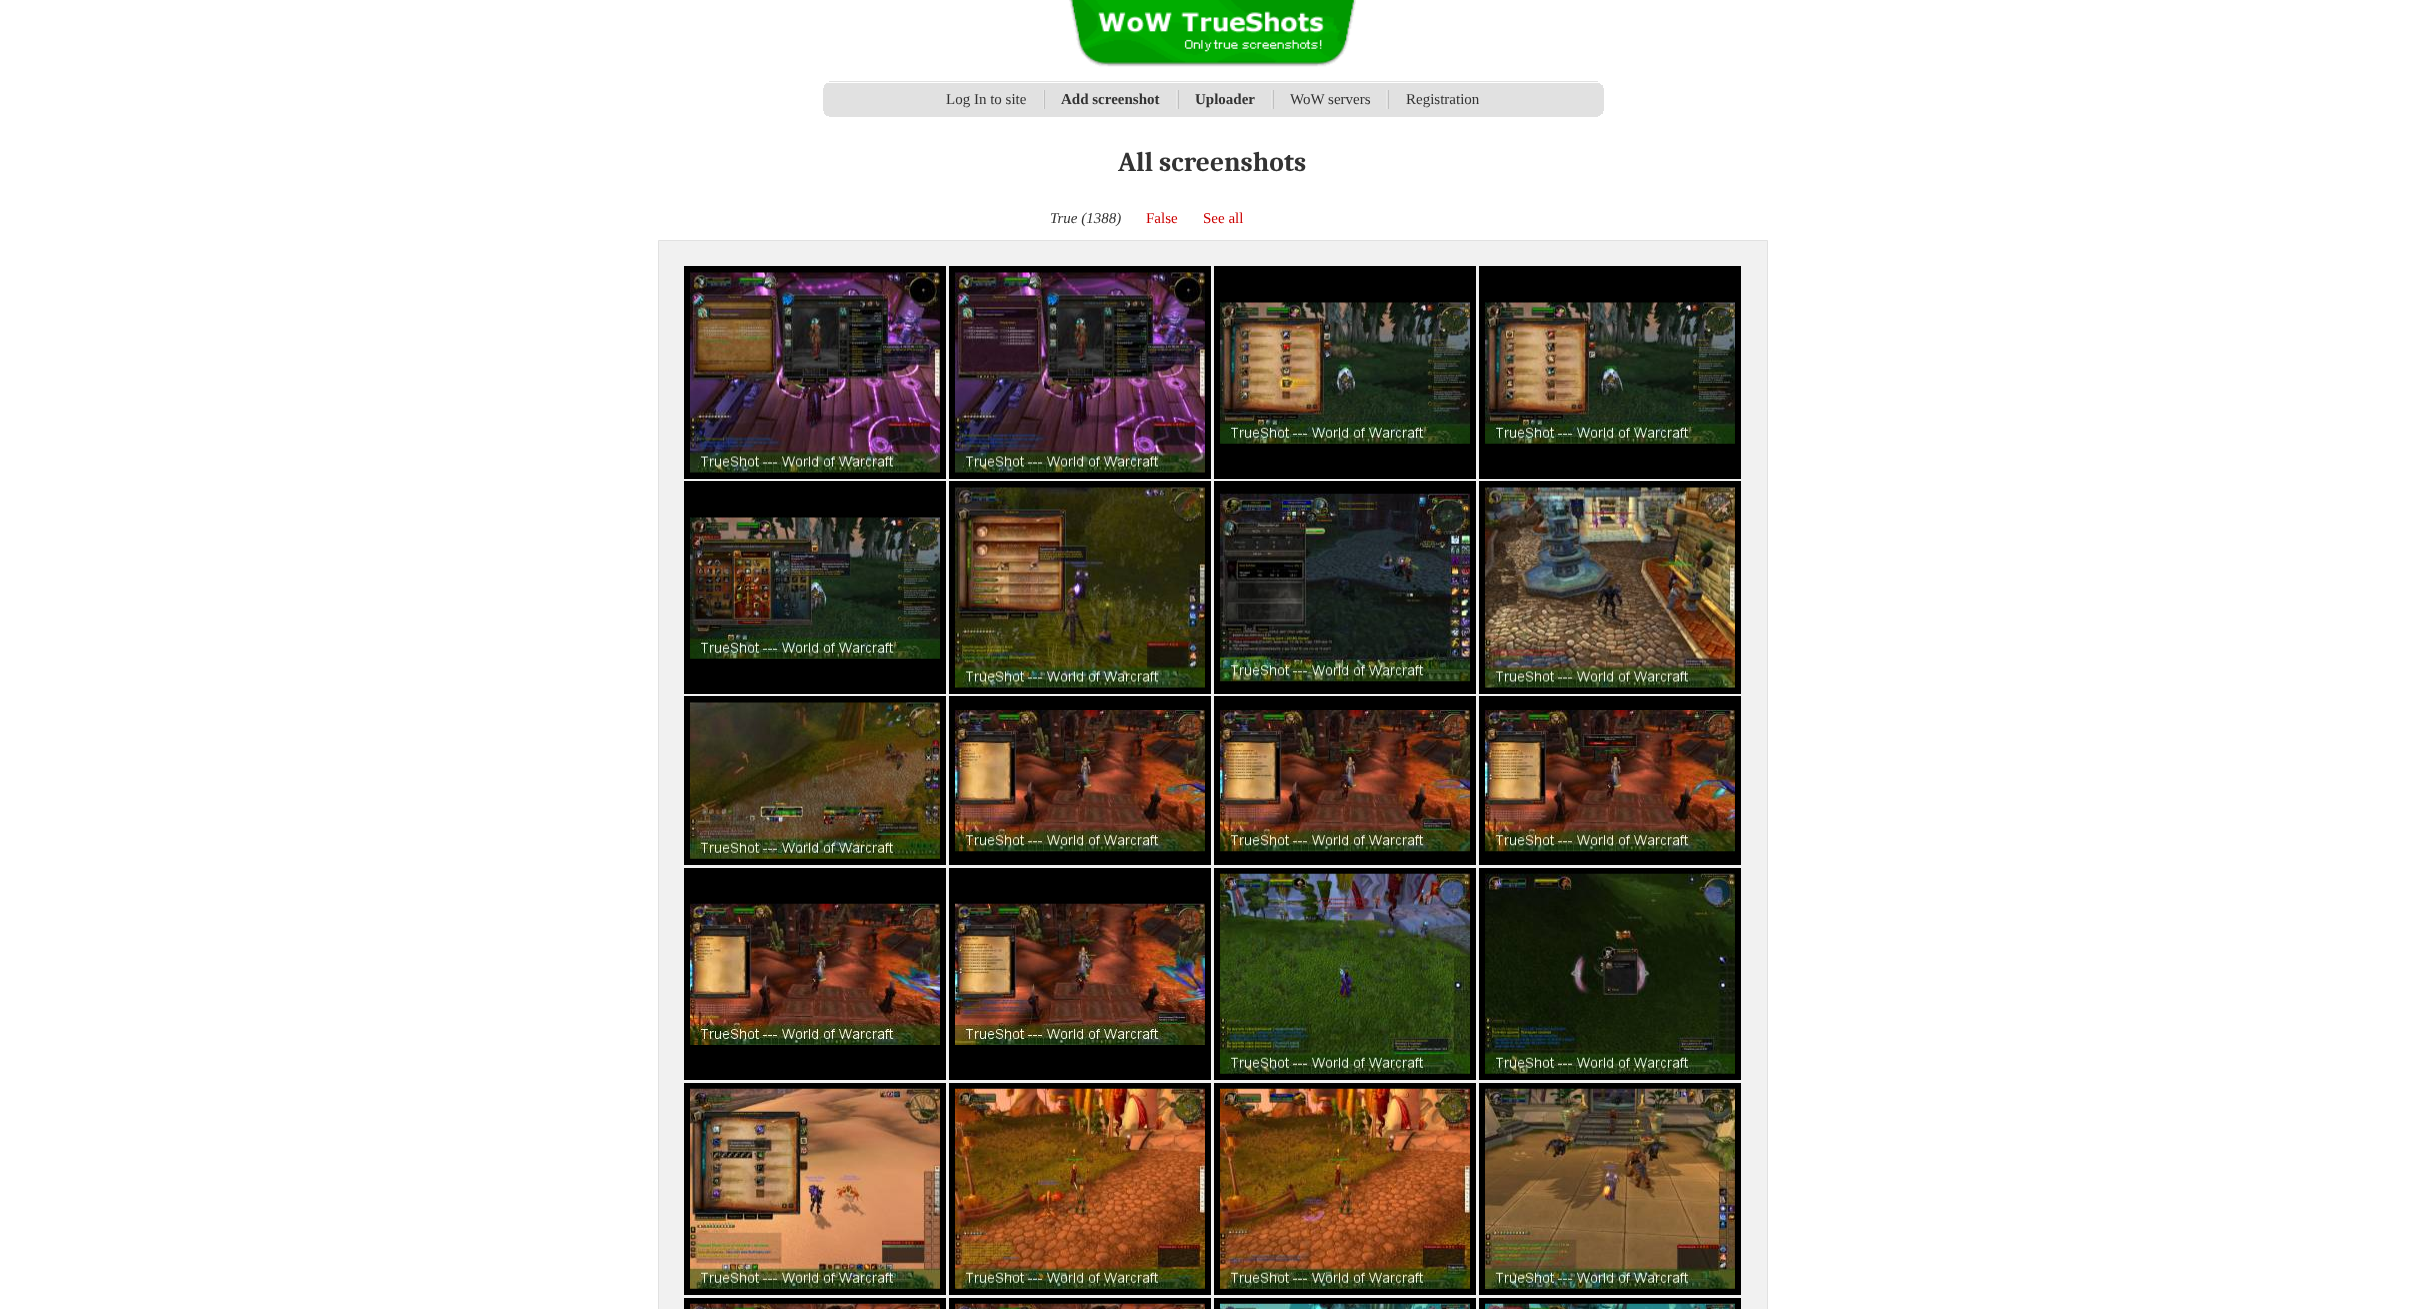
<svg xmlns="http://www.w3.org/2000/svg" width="2425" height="1309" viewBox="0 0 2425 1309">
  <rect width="100%" height="100%" fill="#fff"/>
  <image x="1069" y="0" width="287" height="67" href="img/1.png"/>
  <path d="M823 88h781v23H823z" fill="#e1e1e1"/>
  <path d="M829 81h769v1H829z" fill="#e1e1e1"/>
  <path d="M826 83h774v1H826z" fill="#e1e1e1"/>
  <path d="M825 84h776v1H825z" fill="#e1e1e1"/>
  <path d="M824 85h779v3H824z" fill="#e1e1e1"/>
  <path d="M1043 90h1v19H1043z" fill="#e9e9e9"/>
  <path d="M1044 90h1v19H1044z" fill="#c0c0c0"/>
  <path d="M1176 90h1v19H1176z" fill="#e9e9e9"/>
  <path d="M1178 90h1v19H1178z" fill="#c0c0c0"/>
  <path d="M1271 90h1v19H1271z" fill="#e9e9e9"/>
  <path d="M1273 90h1v19H1273z" fill="#c0c0c0"/>
  <path d="M1386 90h1v19H1386z" fill="#e9e9e9"/>
  <path d="M1388 90h1v19H1388z" fill="#c0c0c0"/>
  <path d="M824 111h779v3H824z" fill="#e1e1e1"/>
  <path d="M825 114h776v1H825z" fill="#e1e1e1"/>
  <path d="M826 115h774v1H826z" fill="#e1e1e1"/>
  <path d="M829 116h769v1H829z" fill="#e1e1e1"/>
  <path d="M658.5 240.5h1109v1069H658.5z" fill="#f1f1f1" stroke="#e1e1e1"/>
  <path d="M684 266h262v213H684z" fill="#000"/>
  <image x="690" y="272" width="250" height="201" href="img/2.png"/>
  <path d="M949 266h262v213H949z" fill="#000"/>
  <image x="955" y="272" width="250" height="201" href="img/3.png"/>
  <path d="M1214 266h262v213H1214z" fill="#000"/>
  <image x="1220" y="302" width="250" height="142" href="img/4.png"/>
  <path d="M1479 266h262v213H1479z" fill="#000"/>
  <image x="1485" y="302" width="250" height="142" href="img/5.png"/>
  <path d="M684 481h262v213H684z" fill="#000"/>
  <image x="690" y="517" width="250" height="142" href="img/6.png"/>
  <path d="M949 481h262v213H949z" fill="#000"/>
  <image x="955" y="487" width="250" height="201" href="img/7.png"/>
  <path d="M1214 481h262v213H1214z" fill="#000"/>
  <image x="1220" y="493" width="250" height="189" href="img/8.png"/>
  <path d="M1479 481h262v213H1479z" fill="#000"/>
  <image x="1485" y="487" width="250" height="201" href="img/9.png"/>
  <path d="M684 696h262v169H684z" fill="#000"/>
  <image x="690" y="702" width="250" height="157" href="img/10.png"/>
  <path d="M949 696h262v169H949z" fill="#000"/>
  <image x="955" y="710" width="250" height="142" href="img/11.png"/>
  <path d="M1214 696h262v169H1214z" fill="#000"/>
  <image x="1220" y="710" width="250" height="142" href="img/12.png"/>
  <path d="M1479 696h262v169H1479z" fill="#000"/>
  <image x="1485" y="710" width="250" height="142" href="img/13.png"/>
  <path d="M684 868h262v212H684z" fill="#000"/>
  <image x="690" y="903" width="250" height="142" href="img/14.png"/>
  <path d="M949 868h262v212H949z" fill="#000"/>
  <image x="955" y="903" width="250" height="142" href="img/15.png"/>
  <path d="M1214 868h262v212H1214z" fill="#000"/>
  <image x="1220" y="873" width="250" height="201" href="img/16.png"/>
  <path d="M1479 868h262v212H1479z" fill="#000"/>
  <image x="1485" y="873" width="250" height="201" href="img/17.png"/>
  <path d="M684 1083h262v212H684z" fill="#000"/>
  <image x="690" y="1088" width="250" height="201" href="img/18.png"/>
  <path d="M949 1083h262v212H949z" fill="#000"/>
  <image x="955" y="1088" width="250" height="201" href="img/19.png"/>
  <path d="M1214 1083h262v212H1214z" fill="#000"/>
  <image x="1220" y="1088" width="250" height="201" href="img/20.png"/>
  <path d="M1479 1083h262v212H1479z" fill="#000"/>
  <image x="1485" y="1088" width="250" height="201" href="img/21.png"/>
  <path d="M684 1298h262v11H684z" fill="#000"/>
  <image x="690" y="1303" width="250" height="6" href="img/22.png"/>
  <path d="M949 1298h262v11H949z" fill="#000"/>
  <image x="955" y="1303" width="250" height="6" href="img/23.png"/>
  <path d="M1214 1298h262v11H1214z" fill="#000"/>
  <image x="1220" y="1303" width="250" height="6" href="img/24.png"/>
  <path d="M1479 1298h262v11H1479z" fill="#000"/>
  <image x="1485" y="1303" width="250" height="6" href="img/25.png"/>
  <text x="946" y="104" font-family="Liberation Serif" font-size="15" fill="#333">Log In to site</text>
  <g font-family="Liberation Serif" font-size="15" font-weight="bold" fill="#333">
    <text x="1061" y="104">Add screenshot</text>
    <text x="1195" y="104">Uploader</text>
  </g>
  <g font-family="Liberation Serif" font-size="15" fill="#333">
    <text x="1290" y="104">WoW servers</text>
    <text x="1406" y="104">Registration</text>
  </g>
  <text x="1118" y="171" font-family="Caladea" font-size="27.5" font-weight="bold" fill="#333">All screenshots</text>
  <text x="1050" y="223" font-family="Liberation Serif" font-size="15" font-style="italic" fill="#333">True (1388)</text>
  <g font-family="Liberation Serif" font-size="15" fill="#c00">
    <text x="1146" y="223">False</text>
    <text x="1203" y="223">See all</text>
  </g>
</svg>
